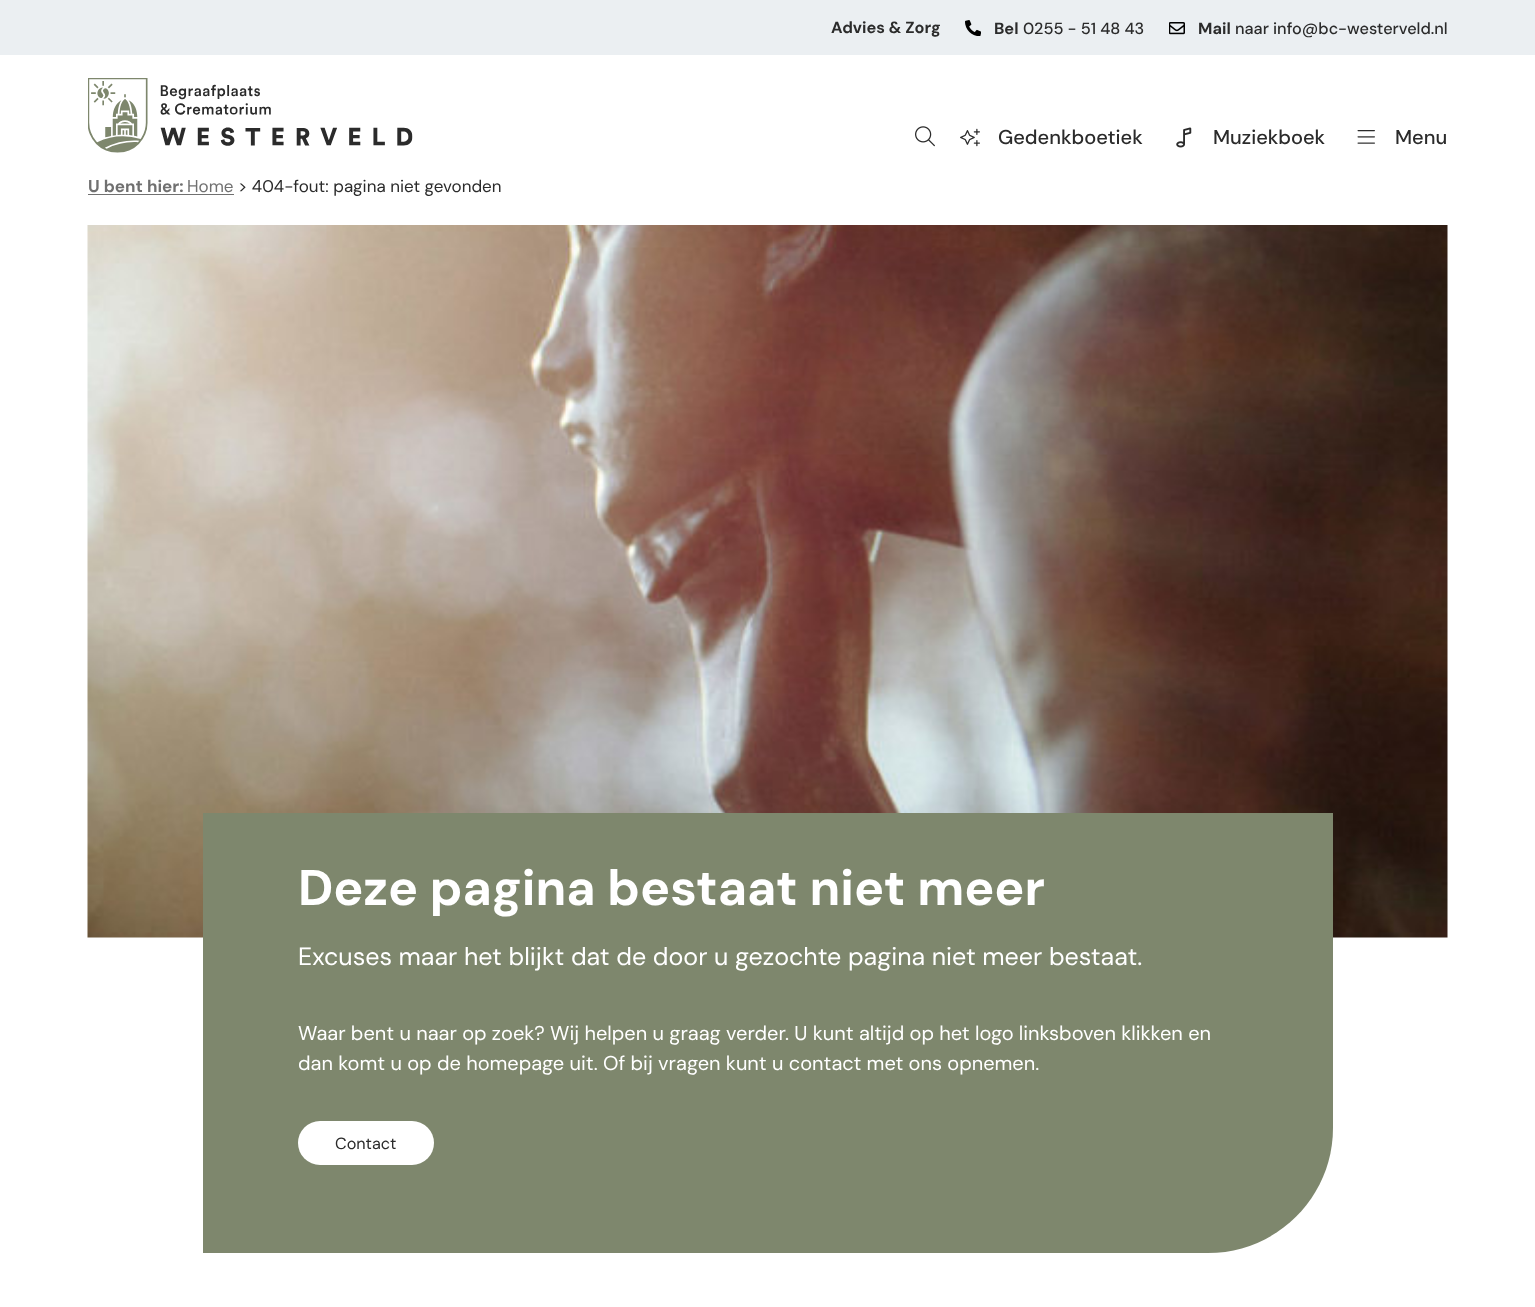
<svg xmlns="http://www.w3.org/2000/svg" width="1535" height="1307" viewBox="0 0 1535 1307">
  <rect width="100%" height="100%" fill="#fff"/>
  <path d="M0 0h1535v55H0z" fill="#ebeff2"/>
  <image x="965" y="20" width="16" height="16" href="img/1.png"/>
  <image x="1169" y="22" width="16" height="13" href="img/2.png"/>
  <image x="88" y="78" width="325" height="75" href="img/3.png"/>
  <image x="915" y="126" width="20" height="21" href="img/4.png"/>
  <image x="960" y="128" width="20" height="19" href="img/5.png"/>
  <image x="1176" y="127" width="16" height="21" href="img/6.png"/>
  <image x="1357" y="130" width="18" height="14" href="img/7.png"/>
  <path d="M88 194h146v1H88z" fill="#707070"/>
  <image x="87" y="225" width="1361" height="713" href="img/8.png"/>
  <path d="M203 813H1333V1128C1333 1197 1277 1253 1208 1253H203Z" fill="#7e876d"/>
  <rect x="298" y="1121" width="136" height="44" rx="22" fill="#fff"/>
  <g font-family="DM Sans" font-size="16.25" font-weight="bold" fill="#2b2b2b">
    <text x="831" y="33">Advies &amp; Zorg</text>
    <text x="994" y="34">Bel</text>
  </g>
  <text x="1023" y="34" font-family="DM Sans" font-size="16.25" font-weight="500" fill="#2b2b2b">0255 - 51 48 43</text>
  <text x="1198" y="34" font-family="DM Sans" font-size="16.25" font-weight="bold" fill="#2b2b2b">Mail</text>
  <text x="1235" y="34" font-family="DM Sans" font-size="16.25" font-weight="500" fill="#2b2b2b">naar info@bc-westerveld.nl</text>
  <g font-family="DM Sans" font-size="20" font-weight="500" fill="#2b2b2b">
    <text x="998" y="144">Gedenkboetiek</text>
    <text x="1213" y="144">Muziekboek</text>
    <text x="1395" y="144">Menu</text>
  </g>
  <text x="88" y="192" font-family="DM Sans" font-size="17" font-weight="bold" fill="#707070">U bent hier:</text>
  <text x="187" y="192" font-family="DM Sans" font-size="17" fill="#707070">Home</text>
  <text x="238" y="192" font-family="DM Sans" font-size="17" fill="#2b2b2b">&gt; 404-fout: pagina niet gevonden</text>
  <text x="298" y="905" font-family="DM Sans" font-size="50" font-weight="bold" fill="#fff">Deze pagina bestaat niet meer</text>
  <text x="298" y="965" font-family="DM Sans" font-size="25" fill="#fff">Excuses maar het blijkt dat de door u gezochte pagina niet meer bestaat.</text>
  <g font-family="DM Sans" font-size="20" fill="#fff">
    <text x="298" y="1040">Waar bent u naar op zoek? Wij helpen u graag verder. U kunt altijd op het logo linksboven klikken en</text>
    <text x="298" y="1070">dan komt u op de homepage uit. Of bij vragen kunt u contact met ons opnemen.</text>
  </g>
  <text x="335" y="1149" font-family="DM Sans" font-size="16.25" fill="#2b2b2b">Contact</text>
</svg>
